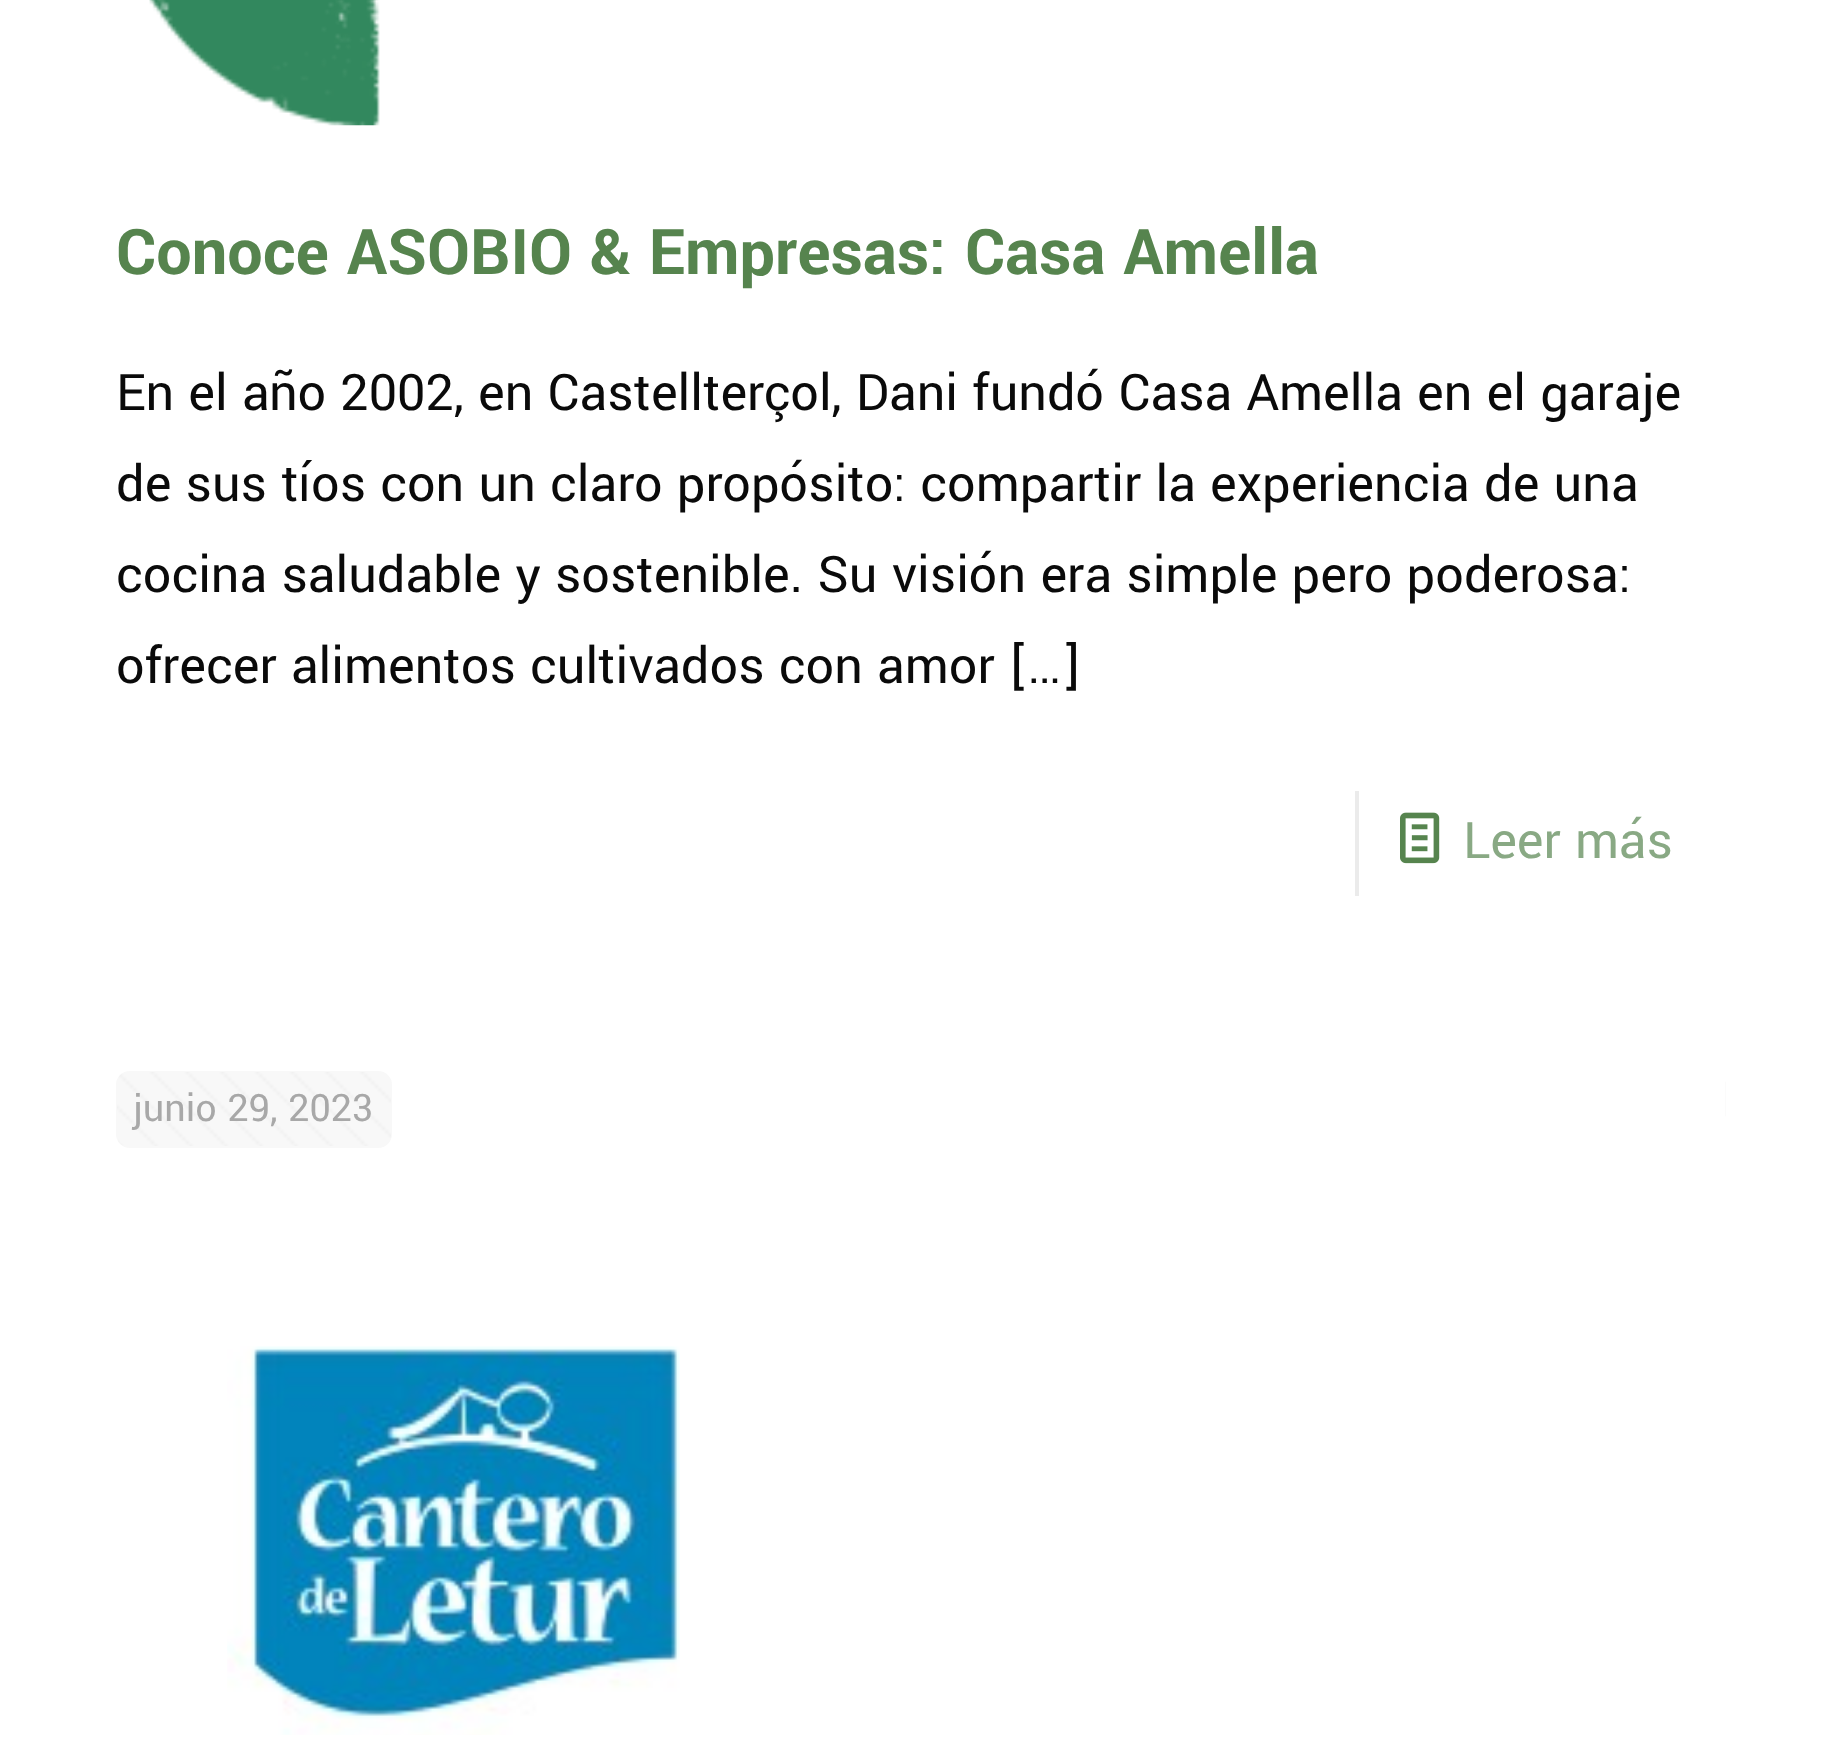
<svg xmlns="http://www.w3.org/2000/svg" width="1840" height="1748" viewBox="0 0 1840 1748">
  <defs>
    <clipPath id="clip1"><path d="M116 1061h1610v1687H116z"/></clipPath>
  </defs>
  <rect width="100%" height="100%" fill="#fff"/>
  <image x="149" y="0" width="231" height="126" href="img/1.png"/>
  <path d="M1355 791h4v105H1355z" fill="#ebebeb"/>
  <image x="1400" y="812" width="40" height="52" href="img/2.png"/>
  <rect x="116" y="1071" width="276" height="77" rx="14" fill="#f8f8f8"/>
  <image x="117" y="1072" width="274" height="74" href="img/3.png"/>
  <g clip-path="url(#clip1)">
    <path d="M1725.5 1116.5V1081.5L1743 1099Z" fill="#f8f8f8"/>
  </g>
  <image x="227" y="1346" width="453" height="389" href="img/4.png"/>
  <text x="116" y="274" font-family="Yantramanav" font-size="70" font-weight="bold" fill="#56844e">Conoce ASOBIO &amp; Empresas: Casa Amella</text>
  <g font-family="Yantramanav" font-size="56" fill="#0a0a0a">
    <text x="116" y="410">En el año 2002, en Castellterçol, Dani fundó Casa Amella en el garaje</text>
    <text x="116" y="501">de sus tíos con un claro propósito: compartir la experiencia de una</text>
    <text x="116" y="592">cocina saludable y sostenible. Su visión era simple pero poderosa:</text>
    <text x="116" y="683">ofrecer alimentos cultivados con amor […]</text>
  </g>
  <text x="1463" y="858" font-family="Yantramanav" font-size="56" fill="#89a984">Leer más</text>
  <text x="133" y="1121" font-family="Yantramanav" font-size="42" fill="#a8a8a8">junio 29, 2023</text>
</svg>
